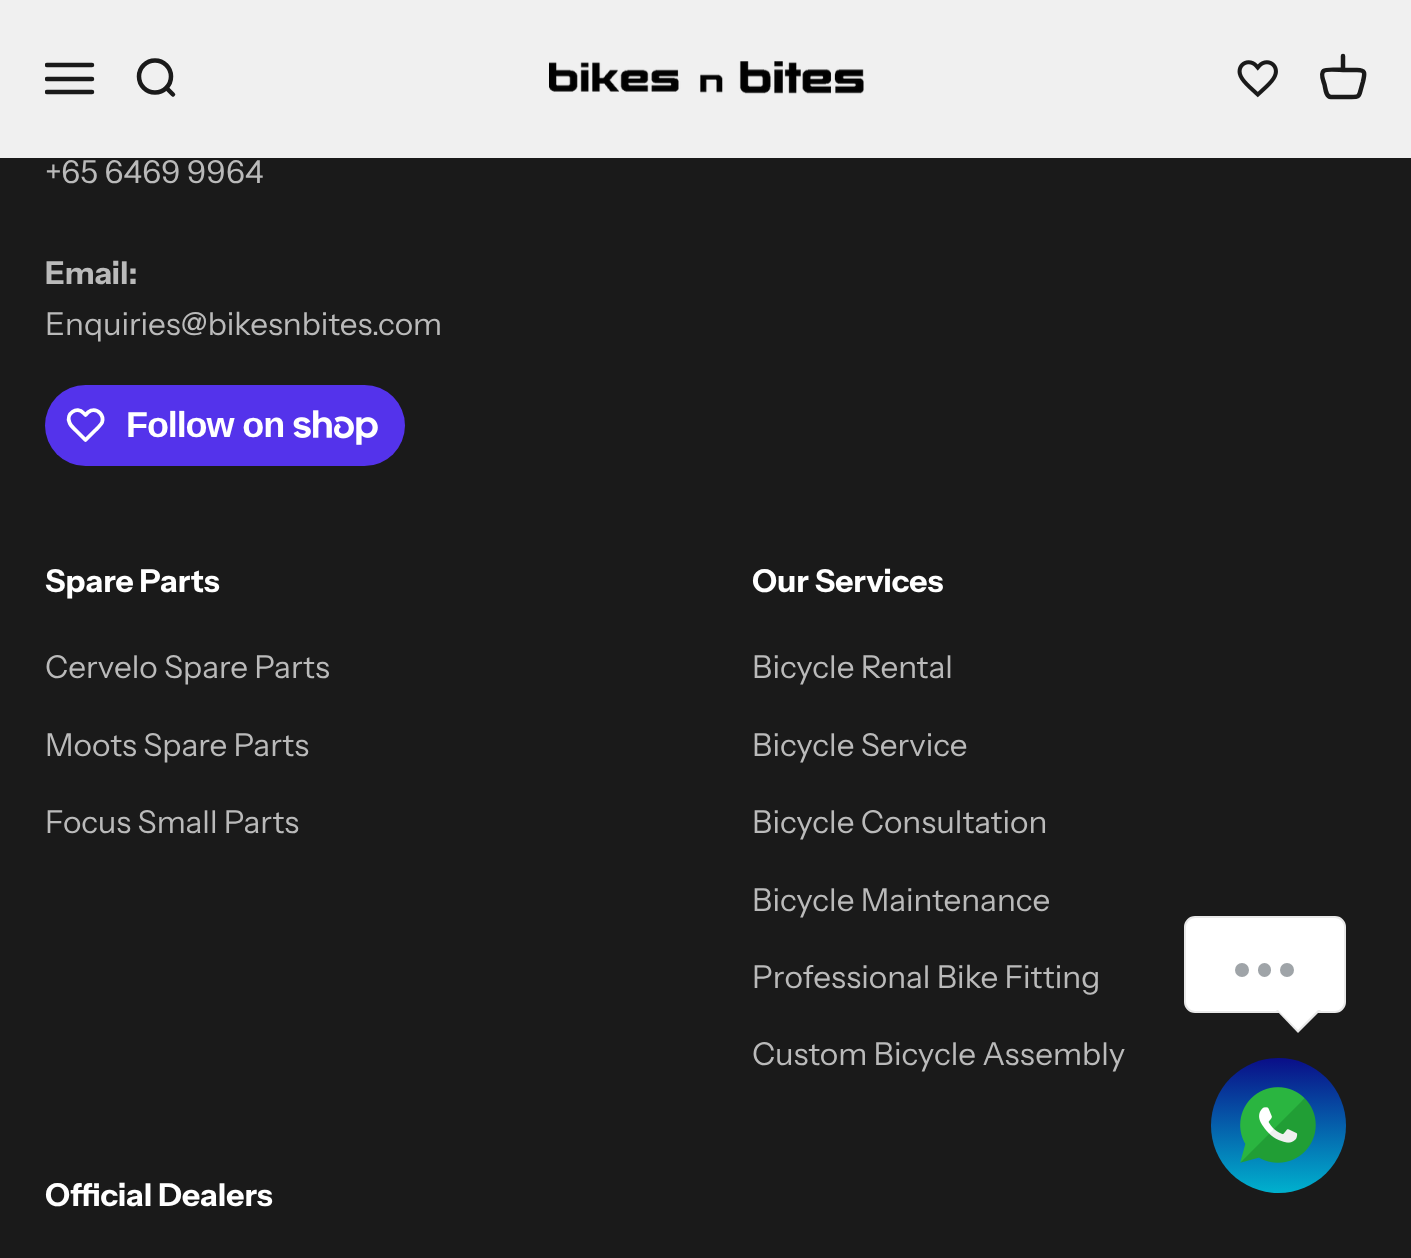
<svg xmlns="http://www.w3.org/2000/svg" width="1411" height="1258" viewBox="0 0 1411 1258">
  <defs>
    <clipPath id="clip1"><path d="M45 54h50v50H45z"/></clipPath>
    <linearGradient id="g1" gradientUnits="userSpaceOnUse" x1="1278" y1="1058" x2="1278" y2="1193"><stop offset="0" stop-color="#0a0e88"/><stop offset="1" stop-color="#00b1ce"/></linearGradient>
  </defs>
  <rect width="100%" height="100%" fill="#1a1a1a"/>
  <path d="M0 0h1411v158H0z" fill="#f0f0f0"/>
  <g clip-path="url(#clip1)">
    <path d="M47 65H92M47 79H92M47 92H92" fill="none" stroke="#1a1a1a" stroke-width="4.5" stroke-linecap="round"/>
  </g>
  <circle cx="155" cy="76.5" r="16" fill="none" stroke="#1a1a1a" stroke-width="4.5"/>
  <path d="M166.5 88L173 94.5" fill="none" stroke="#1a1a1a" stroke-width="4.5" stroke-linecap="round" stroke-linejoin="round"/>
  <image x="549" y="61" width="315" height="33" href="img/1.png"/>
  <image x="1237" y="60" width="41" height="38" href="img/2.png"/>
  <path d="M1343 70C1339.5 70 1326.5 68.5 1323.5 71C1320 74 1323.5 81 1324.5 84.5C1325.5 88 1325.5 96.5 1331 97H1351.5C1358 97 1359 97 1360.5 90.5L1363 81.5C1364.5 74 1366.5 70 1357 70ZM1343 70V56" fill="none" stroke="#1a1a1a" stroke-width="4.5" stroke-linecap="round" stroke-linejoin="round"/>
  <rect x="45" y="385" width="360" height="81" rx="40.5" fill="#5433eb"/>
  <path d="M83.5 413L85.5 415C87 413 88.5 411.5 91 410.5C98 408.5 104.5 415.5 102 422.5C100.5 425.5 97.5 428 95 430.5L85.5 440L76 430.5C73.5 428 70.5 426 69.5 422.5C65.5 413.5 77 406 83.5 413Z" fill="none" stroke="#fff" stroke-width="3.8" stroke-linejoin="round"/>
  <image x="293" y="410" width="85" height="35" href="img/3.png"/>
  <rect x="1185" y="917" width="160" height="95" rx="10" fill="#fff" stroke="#e9e9e9" stroke-width="2"/>
  <circle cx="1242" cy="970" r="7" fill="#9fa4a8"/>
  <rect x="1258" y="963" width="13" height="14" rx="6.5" fill="#9fa4a8"/>
  <circle cx="1287" cy="970" r="7" fill="#9fa4a8"/>
  <path d="M1276 1010H1321L1298 1033Z" fill="#e9e9e9"/>
  <path d="M1278 1010H1318L1298 1030Z" fill="#fff"/>
  <circle cx="1278.5" cy="1125.5" r="67.5" fill="url(#g1)"/>
  <image x="1240" y="1087" width="76" height="76" href="img/4.png"/>
  <text x="45" y="183" font-family="Instrument Sans" font-size="31.5" fill="#bababa">+65 6469 9964</text>
  <text x="45" y="284" font-family="Instrument Sans" font-size="31.5" font-weight="bold" fill="#bababa">Email:</text>
  <text x="45" y="335" font-family="Instrument Sans" font-size="31.5" fill="#bababa">Enquiries@bikesnbites.com</text>
  <text x="126" y="437" font-family="Liberation Sans" font-size="36" font-weight="bold" letter-spacing="-1.1" fill="#fff">Follow on</text>
  <text x="45" y="592" font-family="Instrument Sans" font-size="31.5" font-weight="bold" fill="#fff">Spare Parts</text>
  <g font-family="Instrument Sans" font-size="31.5" fill="#bababa">
    <text x="45" y="678">Cervelo Spare Parts</text>
    <text x="45" y="756">Moots Spare Parts</text>
    <text x="45" y="833">Focus Small Parts</text>
  </g>
  <text x="752" y="592" font-family="Instrument Sans" font-size="31.5" font-weight="bold" fill="#fff">Our Services</text>
  <g font-family="Instrument Sans" font-size="31.5" fill="#bababa">
    <text x="752" y="678">Bicycle Rental</text>
    <text x="752" y="756">Bicycle Service</text>
    <text x="752" y="833">Bicycle Consultation</text>
    <text x="752" y="911">Bicycle Maintenance</text>
    <text x="752" y="988">Professional Bike Fitting</text>
    <text x="752" y="1065">Custom Bicycle Assembly</text>
  </g>
  <text x="45" y="1206" font-family="Instrument Sans" font-size="31.5" font-weight="bold" fill="#fff">Official Dealers</text>
</svg>
